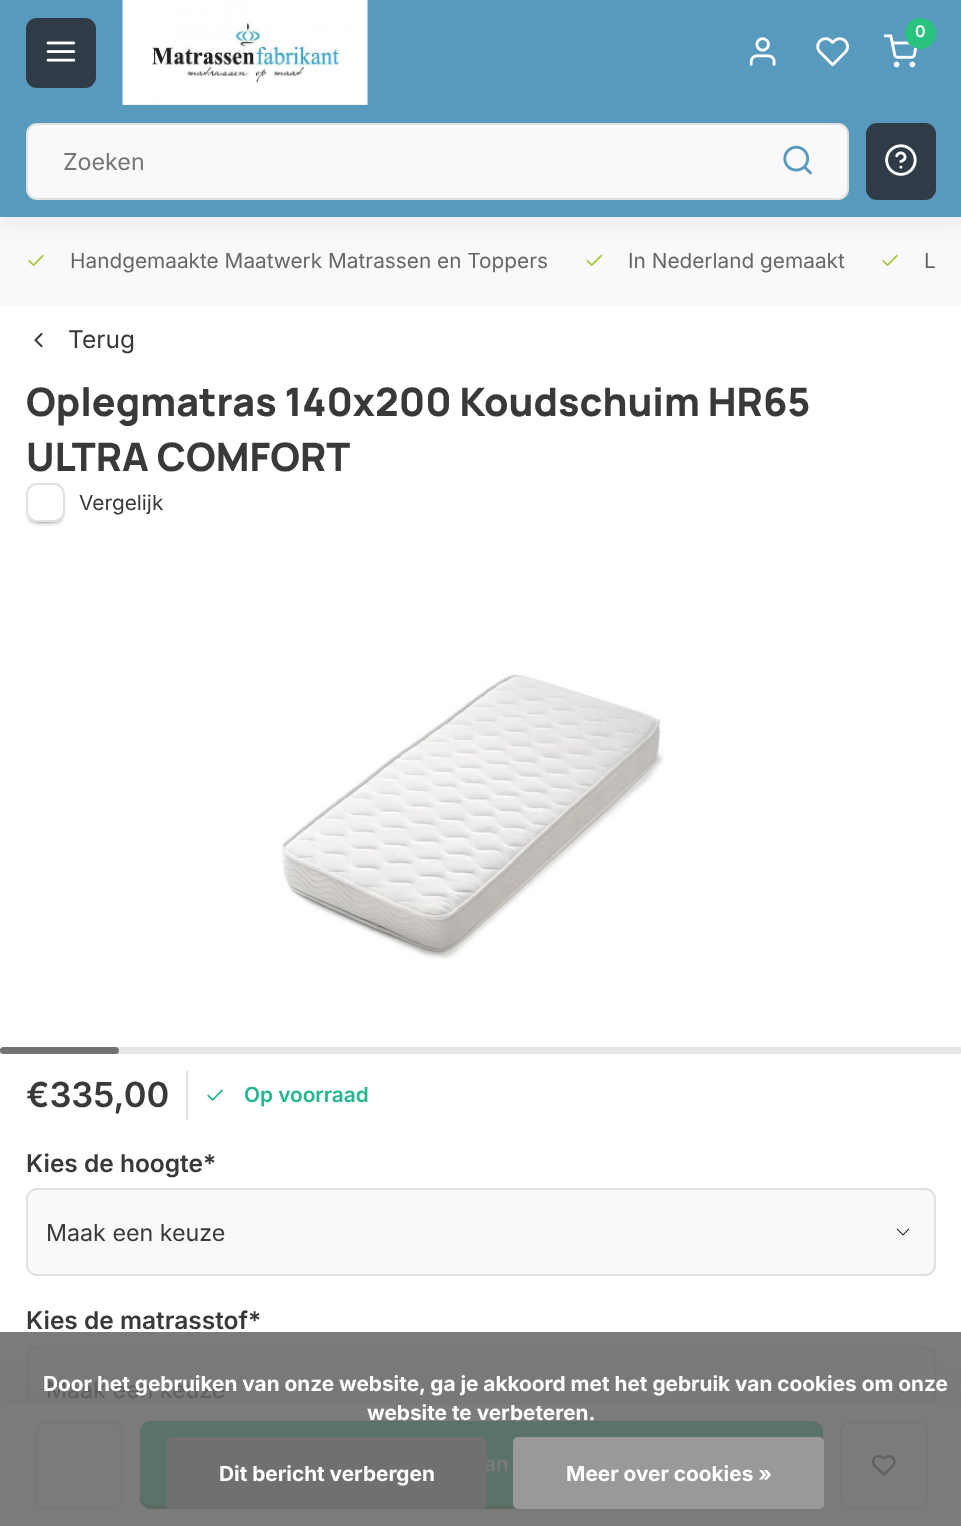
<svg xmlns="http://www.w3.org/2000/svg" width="961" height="1526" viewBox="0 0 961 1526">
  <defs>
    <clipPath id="clip1"><path d="M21 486H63V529H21ZM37 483H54C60 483 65 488 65 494V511C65 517 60 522 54 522H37C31 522 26 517 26 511V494C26 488 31 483 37 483Z" clip-rule="evenodd"/></clipPath>
    <clipPath id="clip2"><path d="M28 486H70V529H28ZM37 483H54C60 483 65 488 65 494V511C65 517 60 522 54 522H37C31 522 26 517 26 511V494C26 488 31 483 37 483Z" clip-rule="evenodd"/></clipPath>
    <clipPath id="clip3"><path d="M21 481H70V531H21ZM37 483H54C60 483 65 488 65 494V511C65 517 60 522 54 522H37C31 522 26 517 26 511V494C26 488 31 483 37 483Z" clip-rule="evenodd"/></clipPath>
  </defs>
  <rect width="100%" height="100%" fill="#fff"/>
  <path d="M0 1332h961v72H0z" fill="#7b7b7b"/>
  <path d="M0 217h961v88H0z" fill="#f9f9fb"/>
  <path d="M0 9h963v217H0z" fill="#0000000d" filter="blur(9px)"/>
  <path d="M0 0h961v217H0z" fill="#5899be"/>
  <rect x="26" y="18" width="70" height="70" rx="11" fill="#2f3b47"/>
  <image x="46" y="41" width="30" height="21" href="img/1.png"/>
  <image x="121" y="0" width="247" height="105" href="img/2.png"/>
  <image x="883" y="34" width="35" height="34" href="img/3.png"/>
  <circle cx="920.5" cy="33.5" r="15.5" fill="#2ac37d"/>
  <image x="749" y="37" width="27" height="29" href="img/4.png"/>
  <image x="816" y="37" width="33" height="30" href="img/5.png"/>
  <rect x="27" y="124" width="821" height="75" rx="10" fill="#f9f9fb" stroke="#e1e1e1" stroke-width="2"/>
  <image x="783" y="145" width="29" height="30" href="img/6.png"/>
  <rect x="866" y="123" width="70" height="77" rx="11" fill="#2f3b47"/>
  <image x="885" y="144" width="32" height="32" href="img/7.png"/>
  <image x="28" y="254" width="16" height="12" href="img/8.png"/>
  <image x="586" y="254" width="17" height="12" href="img/9.png"/>
  <image x="882" y="254" width="16" height="12" href="img/8.png"/>
  <image x="34" y="333" width="9" height="15" href="img/10.png"/>
  <g clip-path="url(#clip1)">
    <rect x="30" y="495" width="24" height="25" rx="4" fill="#999" filter="blur(2.5px)"/>
  </g>
  <g clip-path="url(#clip2)">
    <rect x="37" y="495" width="24" height="25" rx="4" fill="#999" filter="blur(2.5px)"/>
  </g>
  <g clip-path="url(#clip3)">
    <rect x="30" y="490" width="31" height="32" rx="7" fill="#999" filter="blur(2.5px)"/>
  </g>
  <rect x="27" y="484" width="37" height="37" rx="10" fill="none" stroke="#e1e1e1" stroke-width="2"/>
  <image x="281" y="674" width="383" height="286" href="img/11.png"/>
  <rect y="1047" width="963" height="7" rx="3.5" fill="#e6e6e6"/>
  <rect y="1047" width="119" height="7" rx="3.5" fill="#00000080"/>
  <path d="M186 1071h2v49H186z" fill="#e1e1e1"/>
  <image x="207" y="1089" width="16" height="12" href="img/12.png"/>
  <rect x="26" y="1188" width="910" height="88" rx="11" fill="#f9f9f9"/>
  <image x="896" y="1228" width="14" height="8" href="img/13.png"/>
  <rect x="27" y="1189" width="908" height="86" rx="10" fill="none" stroke="#e1e1e1" stroke-width="2"/>
  <rect x="26" y="1346" width="910" height="87" rx="11" fill="#7a7a7a"/>
  <image x="896" y="1386" width="14" height="7" href="img/14.png"/>
  <rect x="27" y="1347" width="908" height="85" rx="10" fill="none" stroke="#777" stroke-width="2"/>
  <path d="M-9 1414h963v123H-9z" fill="#55555526" filter="blur(26px)"/>
  <path d="M0 1404h961v122H0z" fill="#7b7b7b"/>
  <rect x="36" y="1422" width="86" height="86" rx="10" fill="none" stroke="#777" stroke-width="2"/>
  <rect x="140" y="1421" width="683" height="88" rx="11" fill="#5b7268"/>
  <path d="M140 1494V1498C140 1504 145 1509 151 1509H812C818 1509 823 1504 823 1498V1432C823 1430 823 1429 822 1427V1494C822 1500 818 1505 812 1505H150C145 1505 140 1500 140 1494Z" fill="#5b6a61"/>
  <rect x="841" y="1422" width="86" height="86" rx="10" fill="none" stroke="#777" stroke-width="2"/>
  <image x="872" y="1455" width="24" height="21" href="img/15.png"/>
  <rect x="513" y="1437" width="311" height="72" rx="5" fill="#999"/>
  <text x="915" y="37" font-family="Inter" font-size="16" font-weight="600" fill="#fff">0</text>
  <text x="63" y="170" font-family="Inter" font-size="23.25" fill="#757575">Zoeken</text>
  <g font-family="Inter" font-size="20.8" fill="#666">
    <text x="70" y="268">Handgemaakte Maatwerk Matrassen en Toppers</text>
    <text x="628" y="268">In Nederland gemaakt</text>
    <text x="924" y="268">L</text>
  </g>
  <text x="68" y="348" font-family="Inter" font-size="24.5" fill="#393939">Terug</text>
  <g font-family="Manrope" font-size="39.25" font-weight="200" fill="#393939">
    <text x="26" y="416">Oplegmatras 140x200 Koudschuim HR65</text>
    <text x="26" y="471">ULTRA COMFORT</text>
  </g>
  <text x="79" y="510" font-family="Inter" font-size="20.8" fill="#393939">Vergelijk</text>
  <text x="26" y="1107" font-family="Inter" font-size="34.5" font-weight="600" fill="#393939">€335,00</text>
  <text x="244" y="1102" font-family="Inter" font-size="20.8" font-weight="600" fill="#24b691">Op voorraad</text>
  <text x="26" y="1172" font-family="Inter" font-size="24.5" font-weight="600" fill="#393939">Kies de hoogte*</text>
  <text x="46" y="1241" font-family="Inter" font-size="23.25" fill="#393939">Maak een keuze</text>
  <text x="26" y="1329" font-family="Inter" font-size="24.5" font-weight="600" fill="#393939">Kies de matrasstof*</text>
  <text x="46" y="1398" font-family="Inter" font-size="23.25" fill="#5e5e5e">Maak een keuze</text>
  <text x="484" y="1471" font-family="Inter" font-size="20.8" font-weight="600" fill="#7b7b7b">an</text>
  <g font-family="Inter" font-size="20.8" font-weight="bold" fill="#fff">
    <text x="43" y="1391">Door het gebruiken van onze website, ga je akkoord met het gebruik van cookies om onze</text>
    <text x="367" y="1420">website te verbeteren.</text>
  </g>
  <rect x="166" y="1437" width="321" height="72" rx="5" fill="#707070"/>
  <g font-family="Inter" font-size="20.8" font-weight="bold" fill="#fff">
    <text x="219" y="1481">Dit bericht verbergen</text>
    <text x="566" y="1481">Meer over cookies »</text>
  </g>
</svg>
